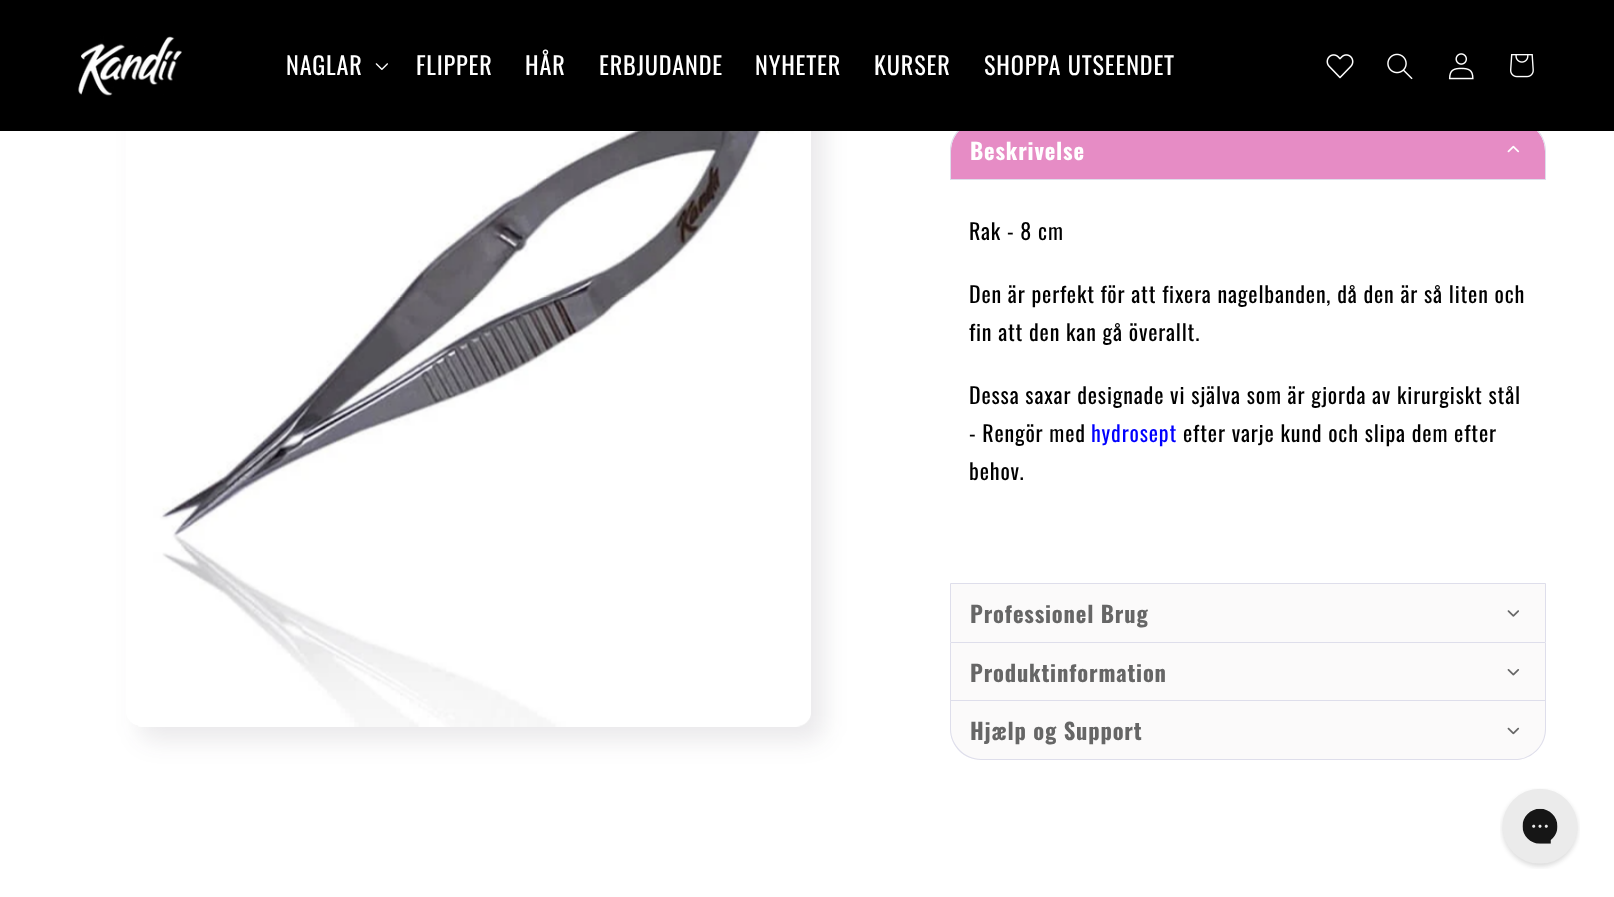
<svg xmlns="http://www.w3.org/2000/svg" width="1614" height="897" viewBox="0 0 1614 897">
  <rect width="100%" height="100%" fill="#fff"/>
  <rect x="139" y="56" width="685" height="685" rx="15" fill="#2e2a391a" filter="blur(12.5px)"/>
  <rect x="126" y="41" width="685" height="685" rx="15" fill="#fff"/>
  <path d="M981 121H1515C1531.5 121 1545 134.5 1545 151V179H951V151C951 134.5 964.5 121 981 121Z" fill="#e68cc5"/>
  <path d="M981 120H1515C1532 120 1546 134 1546 151V179H950V151C950 134 964 120 981 120ZM981 121H1515C1532 121 1545 135 1545 151V179H951V151C951 135 965 121 981 121Z" fill="#dedeeb" fill-rule="evenodd"/>
  <path d="M0 0h1614v131H0z" fill="#000"/>
  <image x="78" y="36" width="104" height="60" href="img/1.png"/>
  <image x="375" y="63" width="13" height="7" href="img/2.png"/>
  <image x="1326" y="54" width="28" height="25" href="img/3.png"/>
  <image x="1387" y="53" width="26" height="27" href="img/4.png"/>
  <image x="1448" y="53" width="26" height="27" href="img/5.png"/>
  <image x="1510" y="54" width="24" height="24" href="img/6.png"/>
  <image x="138" y="131" width="673" height="596" href="img/7.png"/>
  <image x="1507" y="145" width="13" height="8" href="img/8.png"/>
  <path d="M950 179h596v1H950z" fill="#dedeeb"/>
  <path d="M950.5 583.5h595v59H950.5z" fill="#fbfafa" stroke="#dedeeb"/>
  <image x="1507" y="610" width="12" height="7" href="img/9.png"/>
  <path d="M951 643h594v57H951z" fill="#fbfafa"/>
  <path d="M1545 643h1v58H1545z" fill="#dedeeb"/>
  <path d="M950 700h596v1H950z" fill="#dedeeb"/>
  <path d="M950 643h1v58H950z" fill="#dedeeb"/>
  <image x="1507" y="669" width="13" height="7" href="img/10.png"/>
  <path d="M950 701H1546V729C1546 746 1532 760 1515 760H981C964 760 950 746 950 729Z" fill="#fbfafa"/>
  <path d="M950 701H1546V729C1546 746 1532 760 1515 760H981C964 760 950 746 950 729ZM951 701H1545V729C1545 745 1532 759 1515 759H981C965 759 951 745 951 729Z" fill="#dedeeb" fill-rule="evenodd"/>
  <image x="1507" y="727" width="13" height="8" href="img/11.png"/>
  <image x="1500" y="788" width="80" height="81" href="img/12.png"/>
  <g font-family="Oswald" font-size="24.25" letter-spacing="0.83" fill="#fff">
    <text x="286" y="75">NAGLAR</text>
    <text x="416" y="75">FLIPPER</text>
    <text x="525" y="75">HÅR</text>
    <text x="599" y="75">ERBJUDANDE</text>
    <text x="755" y="75">NYHETER</text>
    <text x="874" y="75">KURSER</text>
    <text x="984" y="75">SHOPPA UTSEENDET</text>
  </g>
  <text x="970" y="160" font-family="Oswald" font-size="22.5" font-weight="bold" letter-spacing="0.83" fill="#fff">Beskrivelse</text>
  <g font-family="Oswald" font-size="22" letter-spacing="0.83" fill="#000">
    <text x="969" y="240">Rak - 8 cm</text>
    <text x="969" y="303">Den är perfekt för att fixera nagelbanden, då den är så liten och</text>
    <text x="969" y="341">fin att den kan gå överallt.</text>
    <text x="969" y="404">Dessa saxar designade vi själva som är gjorda av kirurgiskt stål</text>
    <text x="969" y="442">- Rengör med</text>
  </g>
  <text x="1091" y="442" font-family="Oswald" font-size="22" letter-spacing="0.83" fill="#00f">hydrosept</text>
  <g font-family="Oswald" font-size="22" letter-spacing="0.83" fill="#000">
    <text x="1183" y="442">efter varje kund och slipa dem efter</text>
    <text x="969" y="480">behov.</text>
  </g>
  <g font-family="Oswald" font-size="22.5" font-weight="bold" letter-spacing="0.83" fill="#666">
    <text x="970" y="623">Professionel Brug</text>
    <text x="970" y="682">Produktinformation</text>
    <text x="970" y="740">Hjælp og Support</text>
  </g>
</svg>
